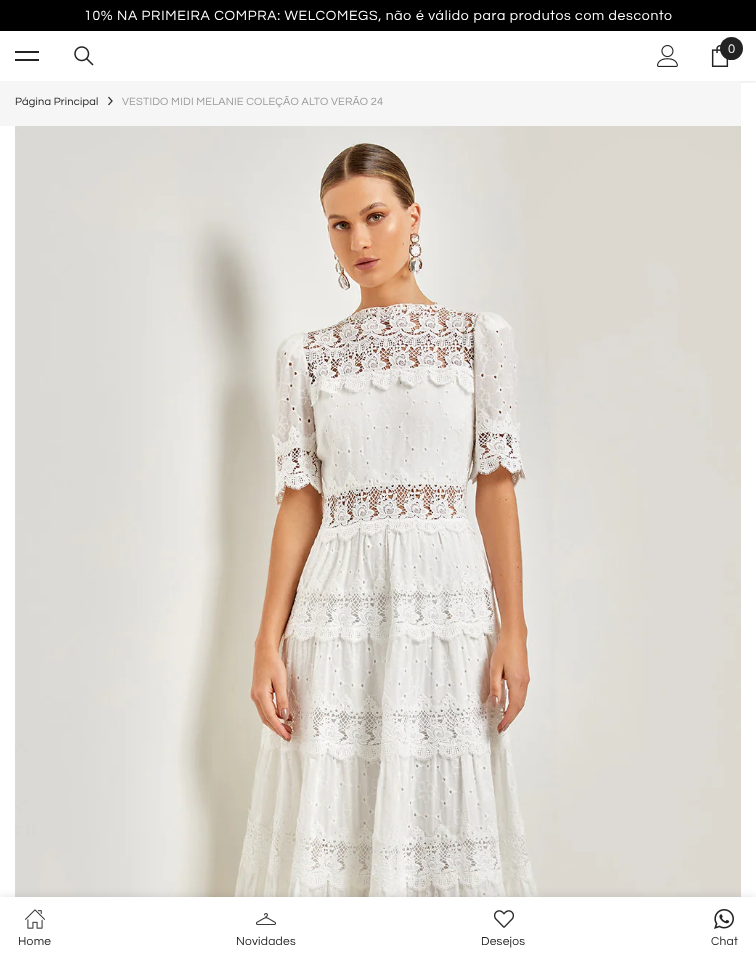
<svg xmlns="http://www.w3.org/2000/svg" width="756" height="959" viewBox="0 0 756 959">
  <defs>
    <clipPath id="clip1"><path d="M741 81h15v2H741z"/></clipPath>
  </defs>
  <rect width="100%" height="100%" fill="#fff"/>
  <path d="M0 0h756v31H0z" fill="#000"/>
  <g clip-path="url(#clip1)">
    <path d="M0 32h756v50H0z" fill="#0000001a" filter="blur(1.5px)"/>
  </g>
  <path d="M15 51h24v2H15z" fill="#232323"/>
  <path d="M15 59h24v2H15z" fill="#232323"/>
  <image x="74" y="46" width="20" height="20" href="img/1.png"/>
  <image x="657" y="45" width="21" height="22" href="img/2.png"/>
  <image x="711" y="45" width="18" height="22" href="img/3.png"/>
  <circle cx="731.5" cy="48.5" r="11.5" fill="#232323"/>
  <path d="M0 81h741v45H0z" fill="#f6f6f6"/>
  <image x="108" y="96" width="5" height="10" href="img/4.png"/>
  <image x="15" y="126" width="726" height="771" href="img/5.png"/>
  <path d="M0 897h756v62H0z" fill="#0000001f" filter="blur(4.5px)"/>
  <path d="M0 897h756v62H0z" fill="#fff"/>
  <image x="25" y="909" width="20" height="20" href="img/6.png"/>
  <image x="256" y="913" width="20" height="12" href="img/7.png"/>
  <image x="494" y="910" width="20" height="18" href="img/8.png"/>
  <image x="714" y="909" width="20" height="20" href="img/9.png"/>
  <text x="84" y="20" font-family="Questrial" font-size="14" letter-spacing="0.7" fill="#fff">10% NA PRIMEIRA COMPRA: WELCOMEGS, não é válido para produtos com desconto</text>
  <text x="728" y="53" font-family="Questrial" font-size="13" fill="#fff">0</text>
  <text x="15" y="105" font-family="Questrial" font-size="11" letter-spacing="0.2" fill="#232323">Página Principal</text>
  <text x="122" y="105" font-family="Questrial" font-size="11" letter-spacing="0.2" fill="#999">VESTIDO MIDI MELANIE COLEÇÃO ALTO VERÃO 24</text>
  <g font-family="Questrial" font-size="12" letter-spacing="0.25" fill="#232323">
    <text x="18" y="945">Home</text>
    <text x="236" y="945">Novidades</text>
    <text x="481" y="945">Desejos</text>
    <text x="711" y="945">Chat</text>
  </g>
</svg>
